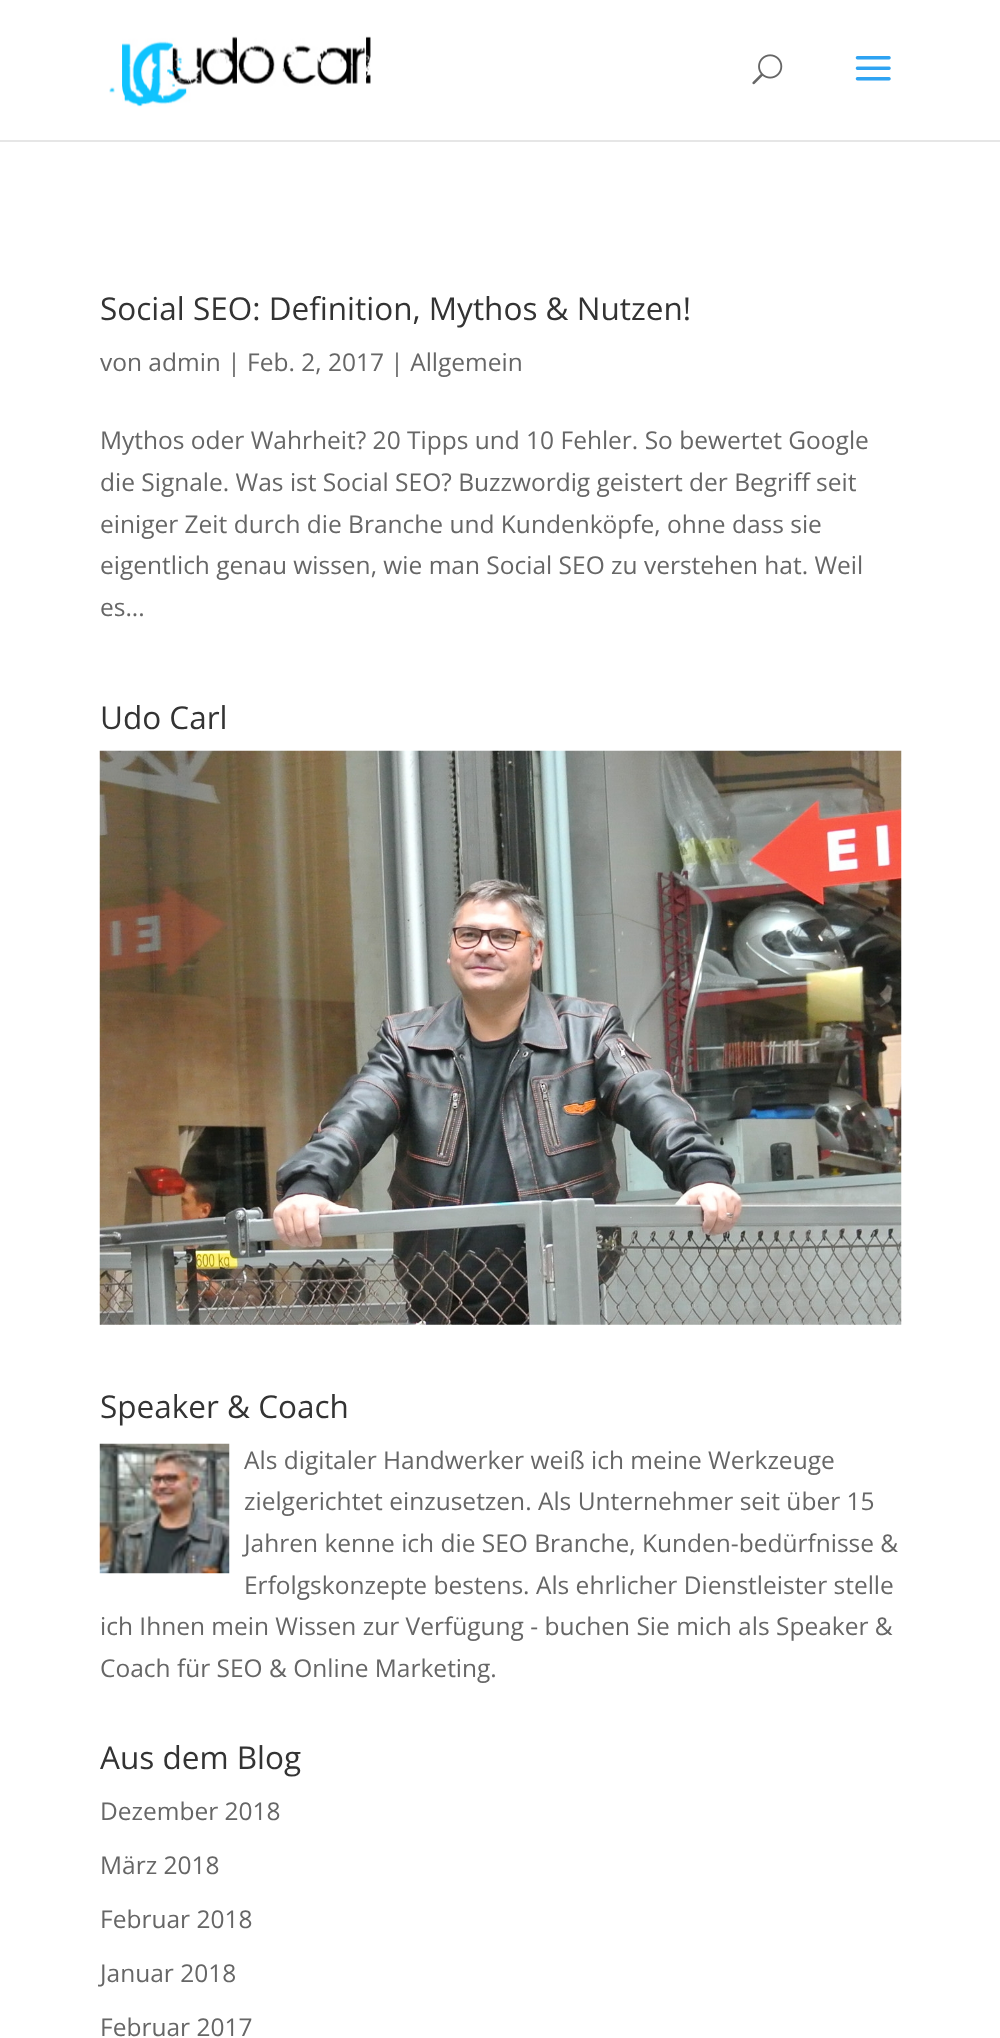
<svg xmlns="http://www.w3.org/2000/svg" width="1000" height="2038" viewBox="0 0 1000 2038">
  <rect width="100%" height="100%" fill="#fff"/>
  <path d="M0 140h1000v2H0z" fill="#e6e6e6"/>
  <image x="109" y="36" width="262" height="71" href="img/1.png"/>
  <image x="752" y="54" width="31" height="31" href="img/2.png"/>
  <image x="855" y="56" width="36" height="25" href="img/3.png"/>
  <image x="99" y="750" width="803" height="575" href="img/4.png"/>
  <image x="99" y="1443" width="131" height="131" href="img/5.png"/>
  <text x="100" y="320" font-family="Open Sans" font-size="31.5" fill="#333">Social SEO: Definition, Mythos &amp; Nutzen!</text>
  <g font-family="Open Sans" font-size="24.5" fill="#666">
    <text x="100" y="371">von admin | Feb. 2, 2017 | Allgemein</text>
    <text x="100" y="449">Mythos oder Wahrheit? 20 Tipps und 10 Fehler. So bewertet Google</text>
    <text x="100" y="491">die Signale. Was ist Social SEO? Buzzwordig geistert der Begriff seit</text>
    <text x="100" y="533">einiger Zeit durch die Branche und Kundenköpfe, ohne dass sie</text>
    <text x="100" y="574">eigentlich genau wissen, wie man Social SEO zu verstehen hat. Weil</text>
    <text x="100" y="616">es...</text>
  </g>
  <g font-family="Open Sans" font-size="31.5" fill="#333">
    <text x="100" y="729">Udo Carl</text>
    <text x="100" y="1418">Speaker &amp; Coach</text>
  </g>
  <g font-family="Open Sans" font-size="24.5" fill="#666">
    <text x="244" y="1469">Als digitaler Handwerker weiß ich meine Werkzeuge</text>
    <text x="244" y="1510">zielgerichtet einzusetzen. Als Unternehmer seit über 15</text>
    <text x="244" y="1552">Jahren kenne ich die SEO Branche, Kunden-bedürfnisse &amp;</text>
    <text x="244" y="1594">Erfolgskonzepte bestens. Als ehrlicher Dienstleister stelle</text>
    <text x="100" y="1635">ich Ihnen mein Wissen zur Verfügung - buchen Sie mich als Speaker &amp;</text>
    <text x="100" y="1677">Coach für SEO &amp; Online Marketing.</text>
  </g>
  <text x="100" y="1769" font-family="Open Sans" font-size="31.5" fill="#333">Aus dem Blog</text>
  <g font-family="Open Sans" font-size="24.5" fill="#666">
    <text x="100" y="1820">Dezember 2018</text>
    <text x="100" y="1874">März 2018</text>
    <text x="100" y="1928">Februar 2018</text>
    <text x="100" y="1982">Januar 2018</text>
    <text x="100" y="2036">Februar 2017</text>
  </g>
</svg>
